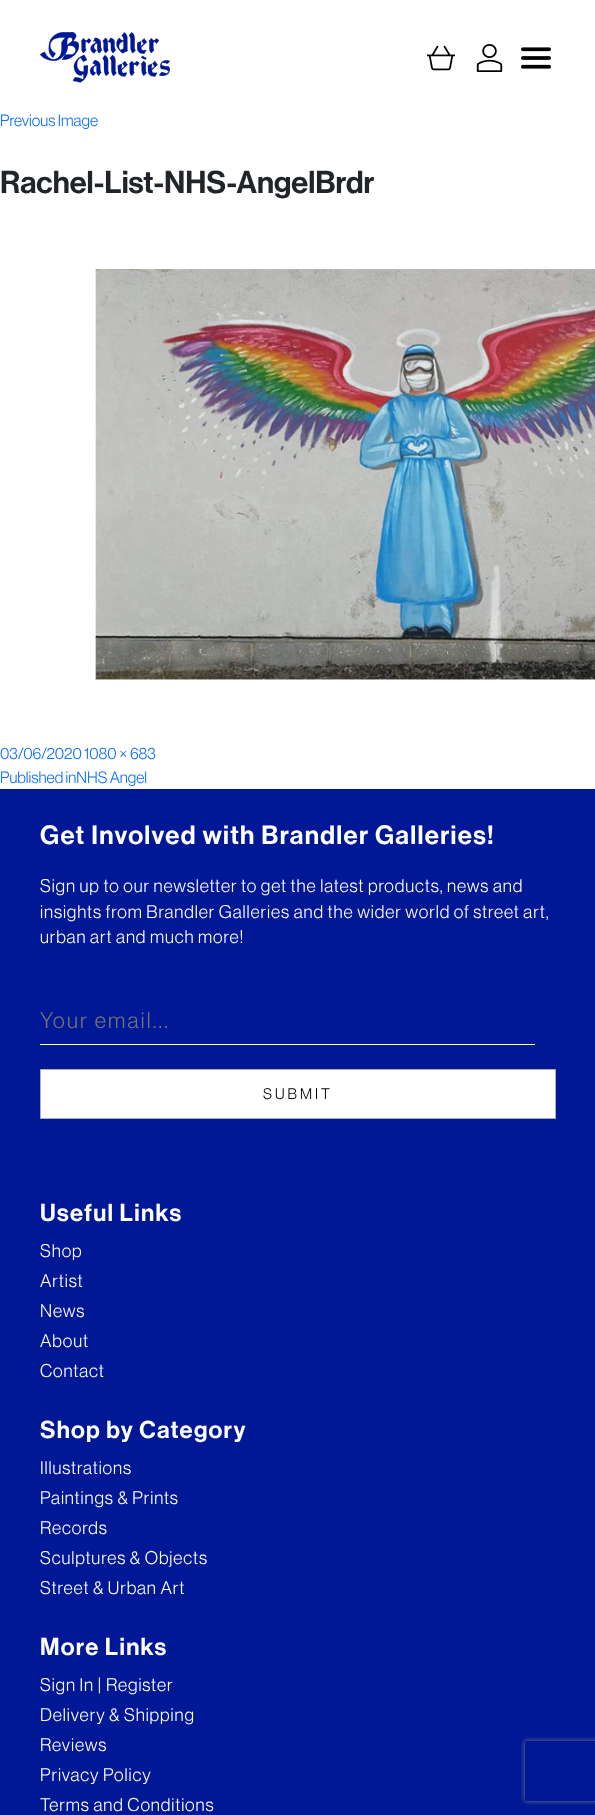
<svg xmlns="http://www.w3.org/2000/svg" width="595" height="1815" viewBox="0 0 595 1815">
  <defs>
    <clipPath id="clip1"><path d="M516 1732H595V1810H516ZM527 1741H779C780 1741 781 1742 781 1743V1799C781 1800 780 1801 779 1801H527C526 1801 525 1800 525 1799V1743C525 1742 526 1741 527 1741Z" clip-rule="evenodd"/></clipPath>
  </defs>
  <rect width="100%" height="100%" fill="#fff"/>
  <image x="40" y="32" width="130" height="51" href="img/1.png"/>
  <image x="427" y="45" width="28" height="26" href="img/2.png"/>
  <image x="476" y="44" width="27" height="28" href="img/3.png"/>
  <image x="521" y="47" width="30" height="22" href="img/4.png"/>
  <image x="95" y="269" width="500" height="411" href="img/5.png"/>
  <path d="M0 789h595v1026H0z" fill="#001896"/>
  <path d="M40 1044h495v1H40z" fill="#fff"/>
  <path d="M40.5 1069.5h515v49H40.5z" fill="#fff" stroke="#abb0b2"/>
  <g clip-path="url(#clip1)">
    <rect x="525" y="1741" width="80" height="60" rx="2" fill="#808080" filter="blur(2.5px)"/>
  </g>
  <text x="0" y="126" font-family="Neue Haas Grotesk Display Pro" font-size="16" fill="#0d6efd">Previous Image</text>
  <text x="0" y="193" font-family="Neue Haas Grotesk Display Pro" font-size="31" font-weight="500" fill="#212529">Rachel-List-NHS-AngelBrdr</text>
  <g font-family="Neue Haas Grotesk Display Pro" font-size="16" fill="#0d6efd">
    <text x="0" y="759">03/06/2020</text>
    <text x="84" y="759">1080 × 683</text>
    <text x="0" y="783">Published inNHS Angel</text>
  </g>
  <text x="40" y="844" font-family="Neue Haas Grotesk Display Pro" font-size="26" font-weight="500" letter-spacing="1.3" fill="#fff">Get Involved with Brandler Galleries!</text>
  <g font-family="Neue Haas Grotesk Display Pro" font-size="18" letter-spacing="0.9" fill="#fff">
    <text x="40" y="892">Sign up to our newsletter to get the latest products, news and</text>
    <text x="40" y="918">insights from Brandler Galleries and the wider world of street art,</text>
    <text x="40" y="943">urban art and much more!</text>
  </g>
  <text x="40" y="1028" font-family="Neue Haas Grotesk Display Pro" font-size="22" letter-spacing="2.25" fill="#757575">Your email...</text>
  <text x="263" y="1099" font-family="Neue Haas Grotesk Display Pro" font-size="15" letter-spacing="3" fill="#000">SUBMIT</text>
  <text x="40" y="1221" font-family="Neue Haas Grotesk Display Pro" font-size="24" font-weight="500" letter-spacing="1.25" fill="#fff">Useful Links</text>
  <g font-family="Neue Haas Grotesk Display Pro" font-size="18" letter-spacing="0.9" fill="#fff">
    <text x="40" y="1257">Shop</text>
    <text x="40" y="1287">Artist</text>
    <text x="40" y="1317">News</text>
    <text x="40" y="1347">About</text>
    <text x="40" y="1377">Contact</text>
  </g>
  <text x="40" y="1438" font-family="Neue Haas Grotesk Display Pro" font-size="24" font-weight="500" letter-spacing="1.25" fill="#fff">Shop by Category</text>
  <g font-family="Neue Haas Grotesk Display Pro" font-size="18" letter-spacing="0.9" fill="#fff">
    <text x="40" y="1474">Illustrations</text>
    <text x="40" y="1504">Paintings &amp; Prints</text>
    <text x="40" y="1534">Records</text>
    <text x="40" y="1564">Sculptures &amp; Objects</text>
    <text x="40" y="1594">Street &amp; Urban Art</text>
  </g>
  <text x="40" y="1655" font-family="Neue Haas Grotesk Display Pro" font-size="24" font-weight="500" letter-spacing="1.25" fill="#fff">More Links</text>
  <g font-family="Neue Haas Grotesk Display Pro" font-size="18" letter-spacing="0.9" fill="#fff">
    <text x="40" y="1691">Sign In | Register</text>
    <text x="40" y="1721">Delivery &amp; Shipping</text>
    <text x="40" y="1751">Reviews</text>
    <text x="40" y="1781">Privacy Policy</text>
    <text x="40" y="1811">Terms and Conditions</text>
  </g>
</svg>
